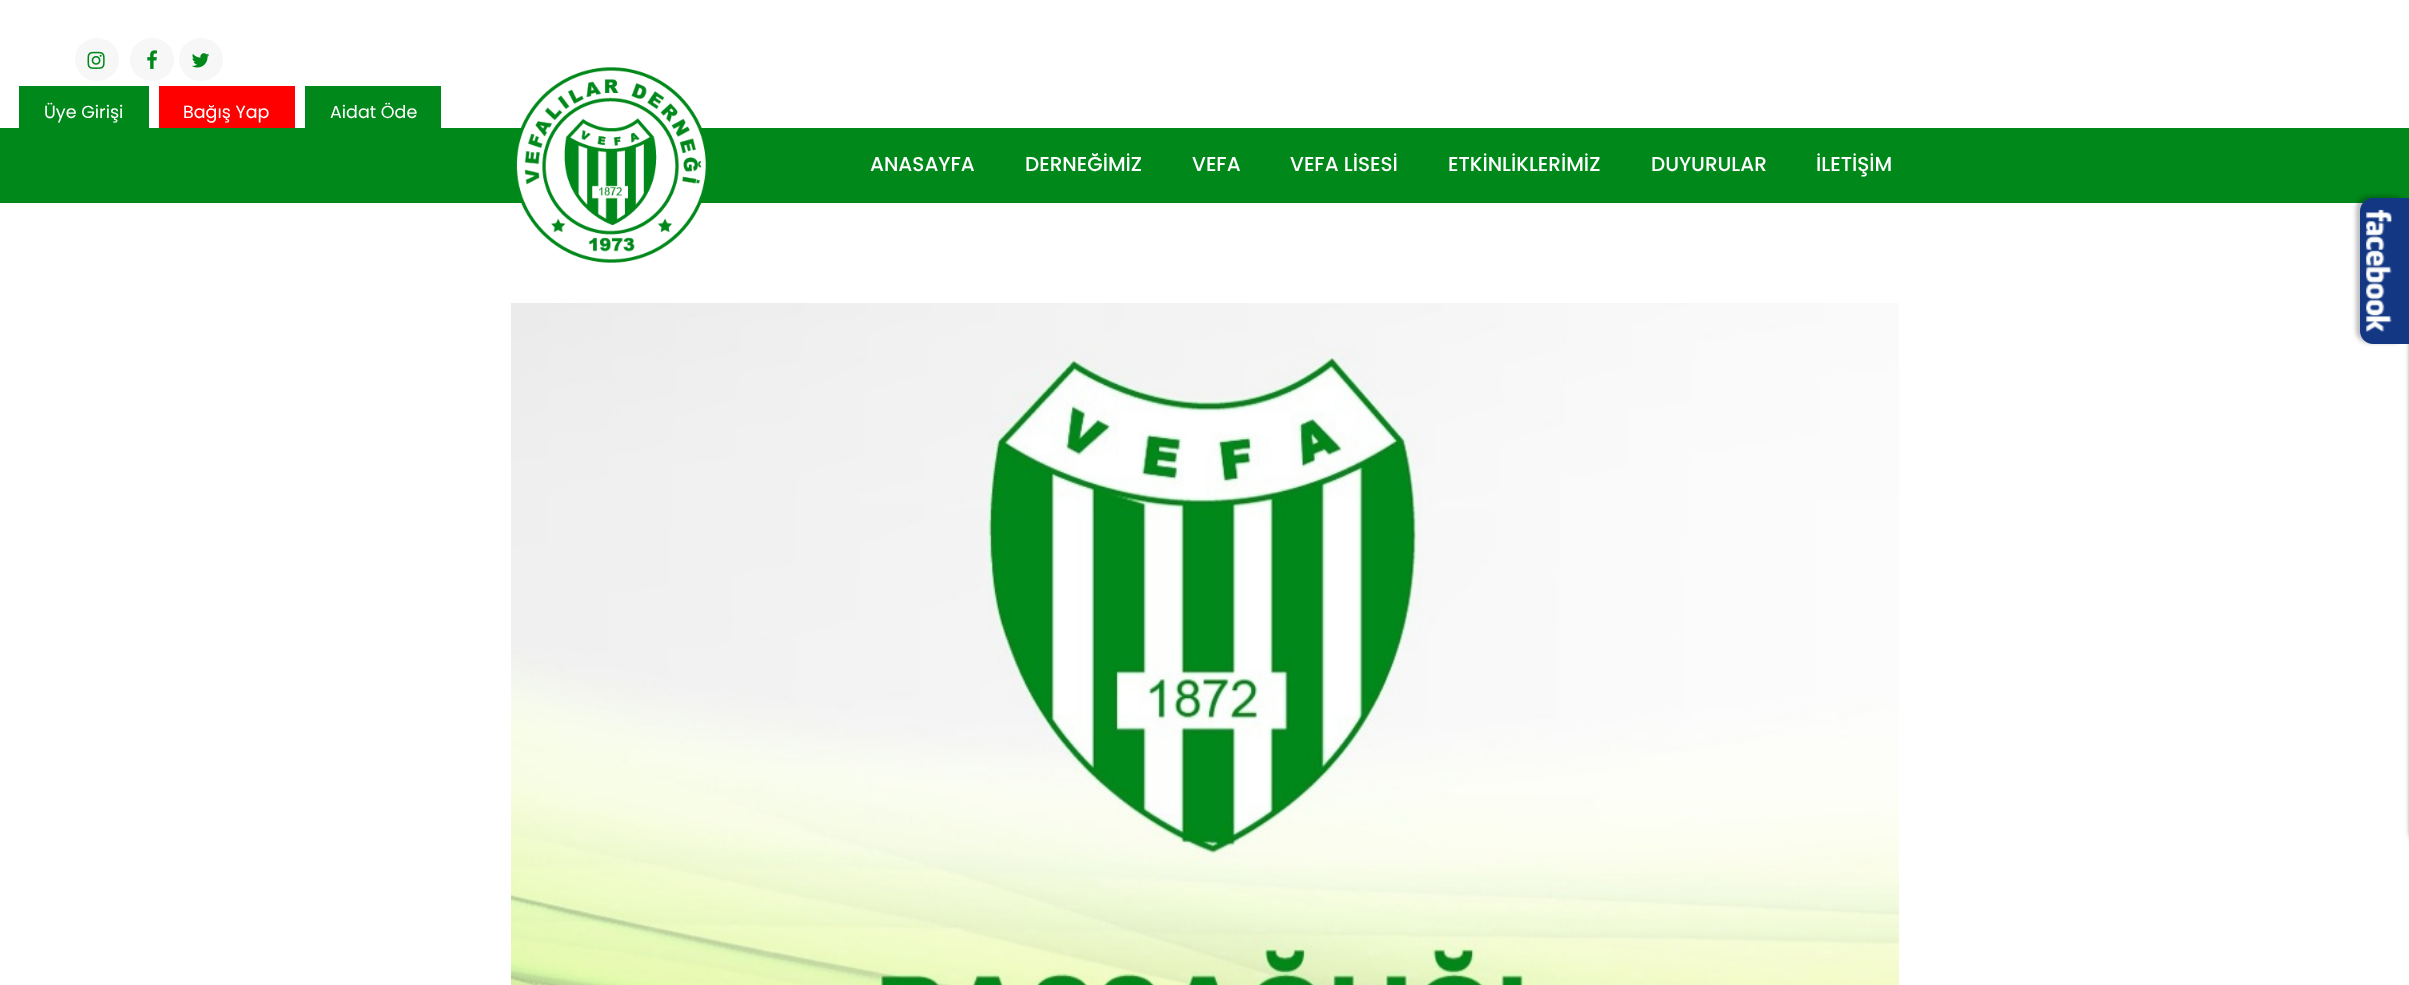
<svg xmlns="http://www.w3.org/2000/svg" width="2409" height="985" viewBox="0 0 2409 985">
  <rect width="100%" height="100%" fill="#fff"/>
  <rect x="75" y="38" width="44" height="43" rx="21.5" fill="#f7f7f7"/>
  <image x="87" y="51" width="18" height="18" href="img/1.png"/>
  <rect x="130" y="38" width="44" height="43" rx="21.5" fill="#f7f7f7"/>
  <image x="147" y="50" width="10" height="19" href="img/2.png"/>
  <rect x="179" y="38" width="44" height="43" rx="21.5" fill="#f7f7f7"/>
  <image x="191" y="53" width="19" height="15" href="img/3.png"/>
  <path d="M19 86h130v42H19z" fill="#00881a"/>
  <path d="M159 86h136v42H159z" fill="#f00"/>
  <path d="M305 86h136v42H305z" fill="#00881a"/>
  <path d="M0 128h2409v75H0z" fill="#00881a"/>
  <image x="516" y="67" width="190" height="196" href="img/4.png"/>
  <image x="511" y="303" width="1388" height="682" href="img/5.png"/>
  <rect x="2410" y="198" width="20" height="646" rx="13" fill="#00000080" filter="blur(2.5px)"/>
  <rect x="2356" y="196" width="50" height="147" rx="13" fill="#00000040" filter="blur(2px)"/>
  <path d="M2373 198H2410V344H2373C2366 344 2360 338 2360 331V211C2360 204 2366 198 2373 198Z" fill="#133783"/>
  <image x="2366" y="209" width="26" height="123" href="img/6.png"/>
  <g font-family="Poppins" font-size="17.5" fill="#fff">
    <text x="44" y="118">Üye Girişi</text>
    <text x="183" y="118">Bağış Yap</text>
    <text x="330" y="118">Aidat Öde</text>
  </g>
  <g font-family="Poppins" font-size="20" font-weight="500" fill="#fff">
    <text x="870" y="171">ANASAYFA</text>
    <text x="1025" y="171">DERNEĞİMİZ</text>
    <text x="1192" y="171">VEFA</text>
    <text x="1290" y="171">VEFA LİSESİ</text>
    <text x="1448" y="171">ETKİNLİKLERİMİZ</text>
    <text x="1651" y="171">DUYURULAR</text>
    <text x="1816" y="171">İLETİŞİM</text>
  </g>
</svg>
